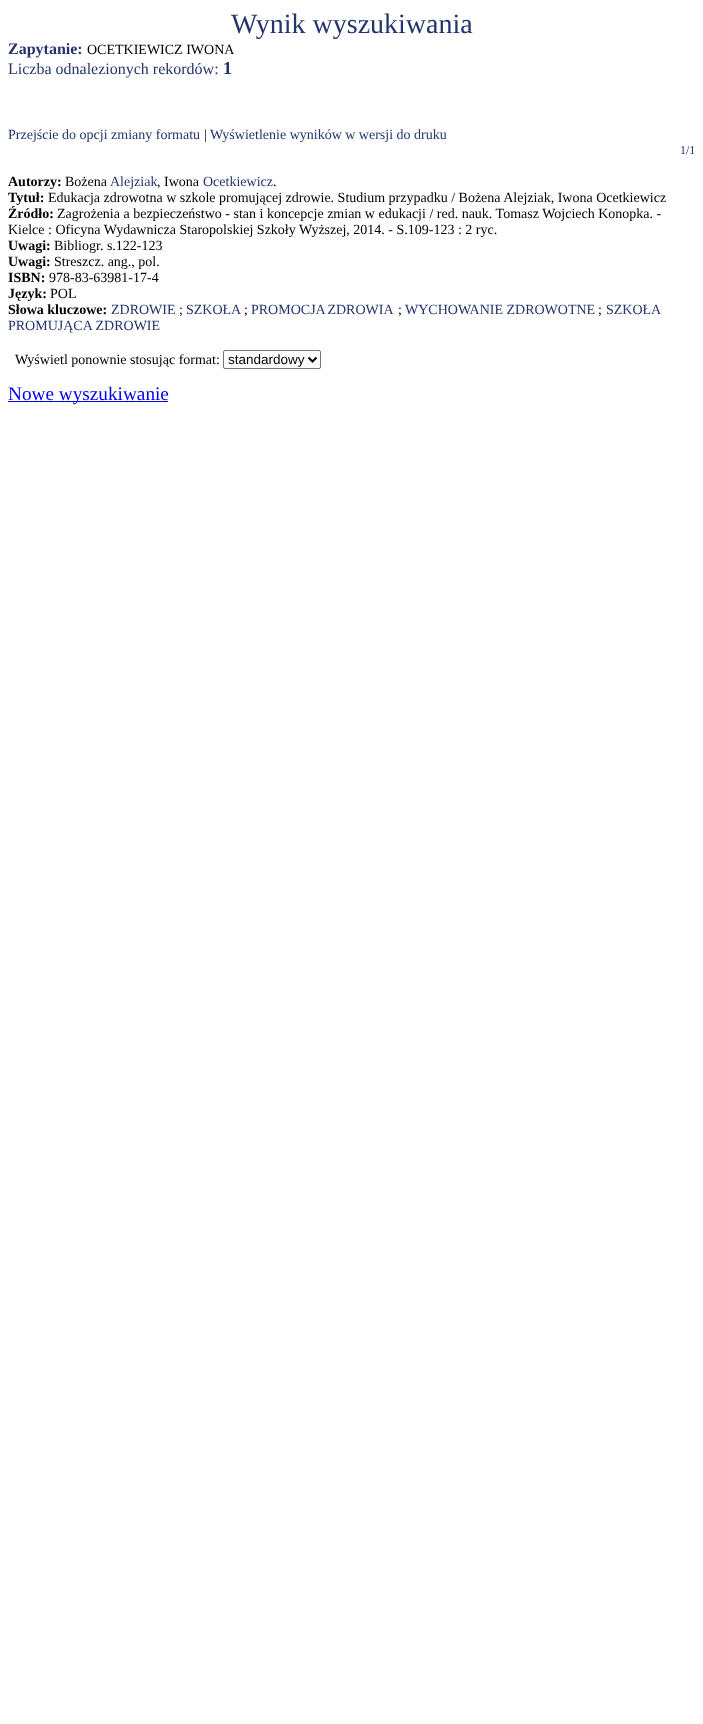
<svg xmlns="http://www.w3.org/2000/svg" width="703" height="1724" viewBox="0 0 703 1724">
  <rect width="100%" height="100%" fill="#fff"/>
  <rect x="223.5" y="350.5" width="97" height="18" rx="1.5" fill="none" stroke="#767676"/>
  <path d="M308.5 357.5L312.5 361.5L316.5 357.5" fill="none" stroke="#000" stroke-width="2"/>
  <path d="M8 401h160v1H8z" fill="#00e"/>
  <text x="231" y="33" font-family="Liberation Serif" font-size="28" fill="#24356d">Wynik wyszukiwania</text>
  <text x="8" y="54" font-family="Liberation Serif" font-size="16" font-weight="bold" fill="#24356d">Zapytanie:</text>
  <text x="87" y="54" font-family="Liberation Serif" font-size="14" fill="#000">OCETKIEWICZ IWONA</text>
  <text x="8" y="74" font-family="Liberation Serif" font-size="16" fill="#24356d">Liczba odnalezionych rekordów:</text>
  <text x="223" y="74" font-family="Liberation Serif" font-size="18" font-weight="bold" fill="#24356d">1</text>
  <text x="8" y="139" font-family="Liberation Serif" font-size="14" fill="#24356d">Przejście do opcji zmiany formatu</text>
  <text x="204" y="139" font-family="Liberation Serif" font-size="14" fill="#000">|</text>
  <text x="210" y="139" font-family="Liberation Serif" font-size="14" fill="#24356d">Wyświetlenie wyników w wersji do druku</text>
  <text x="680" y="154" font-family="Liberation Serif" font-size="12" fill="#24356d">1/1</text>
  <text x="8" y="186" font-family="Liberation Serif" font-size="14" font-weight="bold" fill="#000">Autorzy:</text>
  <text x="65" y="186" font-family="Liberation Serif" font-size="14" fill="#000">Bożena</text>
  <text x="110" y="186" font-family="Liberation Serif" font-size="14" fill="#24356d">Alejziak</text>
  <text x="157" y="186" font-family="Liberation Serif" font-size="14" fill="#000">, Iwona</text>
  <text x="203" y="186" font-family="Liberation Serif" font-size="14" fill="#24356d">Ocetkiewicz</text>
  <text x="273" y="186" font-family="Liberation Serif" font-size="14" fill="#000">.</text>
  <text x="8" y="202" font-family="Liberation Serif" font-size="14" font-weight="bold" fill="#000">Tytuł:</text>
  <text x="48" y="202" font-family="Liberation Serif" font-size="14" fill="#000">Edukacja zdrowotna w szkole promującej zdrowie. Studium przypadku / Bożena Alejziak, Iwona Ocetkiewicz</text>
  <text x="8" y="218" font-family="Liberation Serif" font-size="14" font-weight="bold" fill="#000">Źródło:</text>
  <g font-family="Liberation Serif" font-size="14" fill="#000">
    <text x="57" y="218">Zagrożenia a bezpieczeństwo - stan i koncepcje zmian w edukacji / red. nauk. Tomasz Wojciech Konopka. -</text>
    <text x="8" y="234">Kielce : Oficyna Wydawnicza Staropolskiej Szkoły Wyższej, 2014. - S.109-123 : 2 ryc.</text>
  </g>
  <text x="8" y="250" font-family="Liberation Serif" font-size="14" font-weight="bold" fill="#000">Uwagi:</text>
  <text x="54" y="250" font-family="Liberation Serif" font-size="14" fill="#000">Bibliogr. s.122-123</text>
  <text x="8" y="266" font-family="Liberation Serif" font-size="14" font-weight="bold" fill="#000">Uwagi:</text>
  <text x="54" y="266" font-family="Liberation Serif" font-size="14" fill="#000">Streszcz. ang., pol.</text>
  <text x="8" y="282" font-family="Liberation Serif" font-size="14" font-weight="bold" fill="#000">ISBN:</text>
  <text x="49" y="282" font-family="Liberation Serif" font-size="14" fill="#000">978-83-63981-17-4</text>
  <text x="8" y="298" font-family="Liberation Serif" font-size="14" font-weight="bold" fill="#000">Język:</text>
  <text x="50" y="298" font-family="Liberation Serif" font-size="14" fill="#000">POL</text>
  <text x="8" y="314" font-family="Liberation Serif" font-size="14" font-weight="bold" fill="#000">Słowa kluczowe:</text>
  <text x="111" y="314" font-family="Liberation Serif" font-size="14" fill="#24356d">ZDROWIE</text>
  <text x="179" y="314" font-family="Liberation Serif" font-size="14" fill="#000">;</text>
  <text x="186" y="314" font-family="Liberation Serif" font-size="14" fill="#24356d">SZKOŁA</text>
  <text x="244" y="314" font-family="Liberation Serif" font-size="14" fill="#000">;</text>
  <text x="251" y="314" word-spacing="-1" font-family="Liberation Serif" font-size="14" fill="#24356d">PROMOCJA ZDROWIA</text>
  <text x="398" y="314" font-family="Liberation Serif" font-size="14" fill="#000">;</text>
  <text x="405" y="314" font-family="Liberation Serif" font-size="14" fill="#24356d">WYCHOWANIE ZDROWOTNE</text>
  <text x="598" y="314" font-family="Liberation Serif" font-size="14" fill="#000">;</text>
  <g font-family="Liberation Serif" font-size="14" fill="#24356d">
    <text x="606" y="314">SZKOŁA</text>
    <text x="8" y="330">PROMUJĄCA ZDROWIE</text>
  </g>
  <text x="15" y="364" font-family="Liberation Serif" font-size="14" fill="#000">Wyświetl ponownie stosując format:</text>
  <text x="228" y="364" font-family="Liberation Sans" font-size="13.5" fill="#000">standardowy</text>
  <text x="8" y="400" font-family="Liberation Serif" font-size="19.25" fill="#00e">Nowe wyszukiwanie</text>
</svg>
